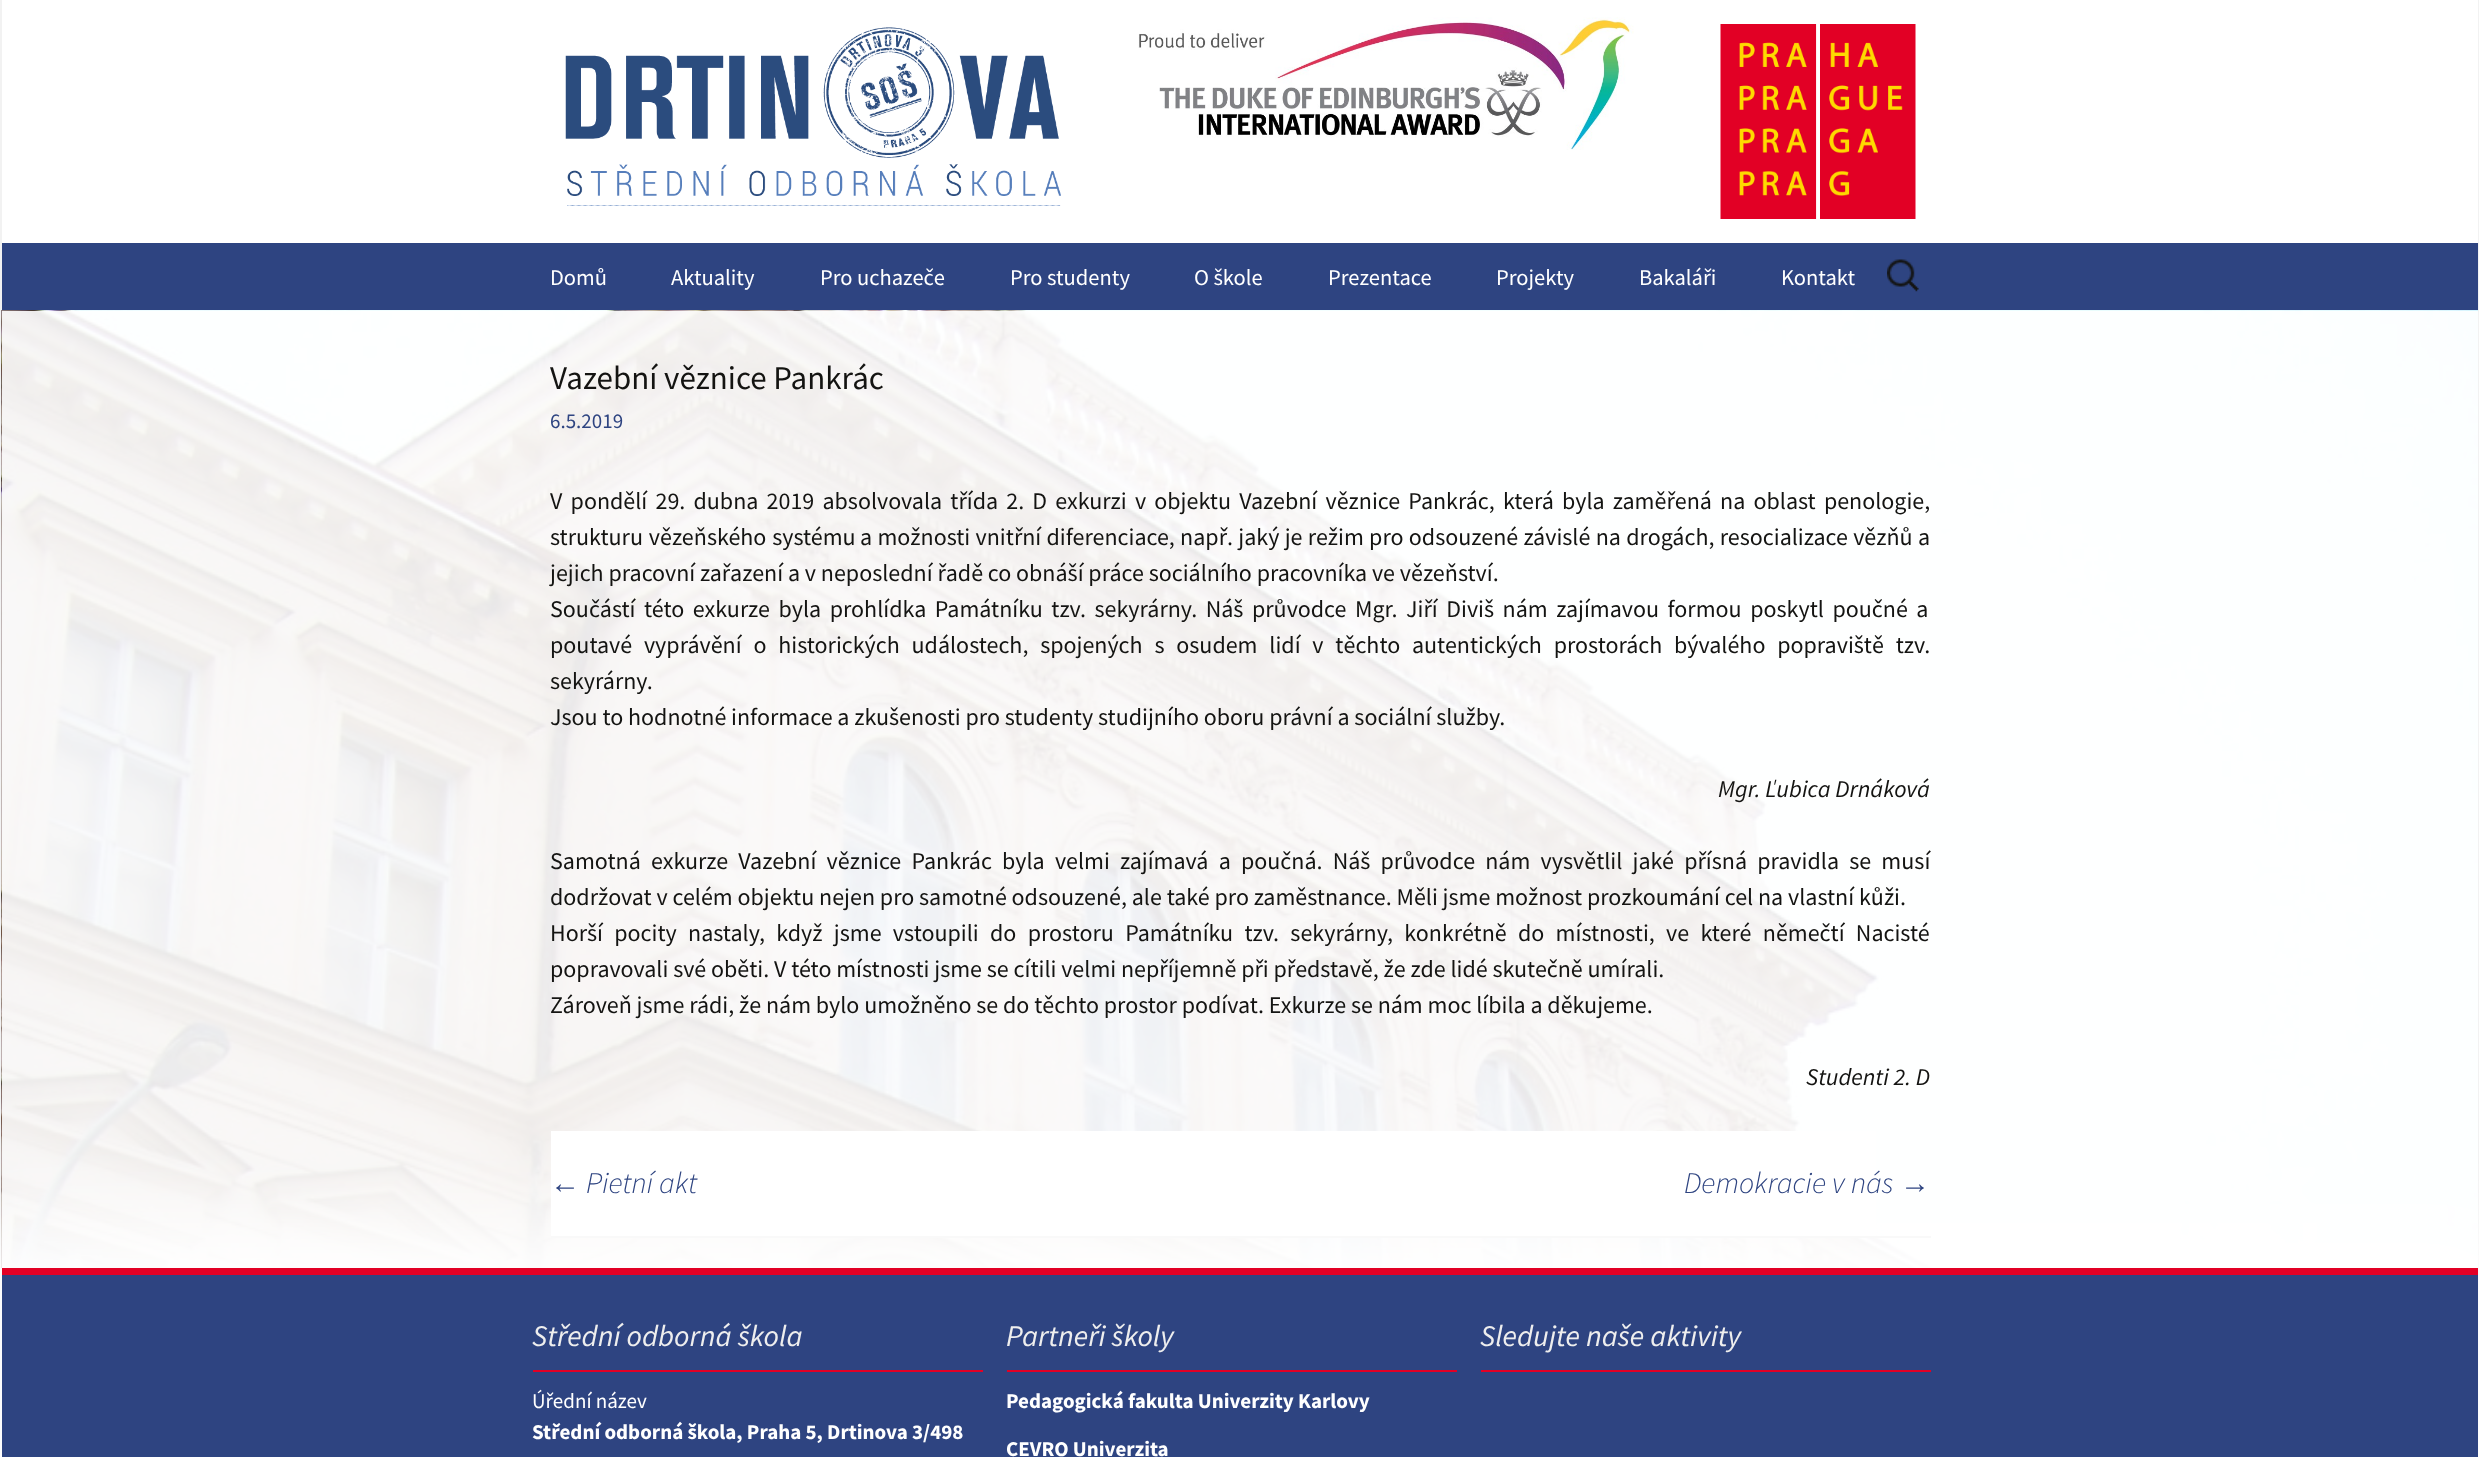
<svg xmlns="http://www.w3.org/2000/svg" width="2479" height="1457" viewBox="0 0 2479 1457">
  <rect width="100%" height="100%" fill="#fff"/>
  <path d="M2478 0h1v1457H2478z" fill="#f2f2f2"/>
  <path d="M0 0h2v1457H0z" fill="#f2f2f2"/>
  <image x="565" y="27" width="496" height="179" href="img/1.png"/>
  <image x="1138" y="17" width="496" height="133" href="img/2.png"/>
  <image x="1720" y="24" width="196" height="195" href="img/3.png"/>
  <path d="M2 243h2476v67H2z" fill="#2e4481"/>
  <image x="1887" y="259" width="32" height="33" href="img/4.png"/>
  <image x="1" y="310" width="2477" height="958" href="img/5.png"/>
  <path d="M551 1131h1325v105H551z" fill="#fff"/>
  <path d="M551 1236h1380v2H551z" fill="#eee"/>
  <path d="M-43 1223h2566v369H-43z" fill="#fff" filter="blur(45px)"/>
  <path d="M2 1268h2476v7H2z" fill="#e20025"/>
  <path d="M2 1275h2476v182H2z" fill="#2e4481"/>
  <path d="M533 1370h450v2H533z" fill="#e20025"/>
  <path d="M1007 1370h450v2H1007z" fill="#e20025"/>
  <path d="M1481 1370h450v2H1481z" fill="#e20025"/>
  <g font-family="Source Sans Pro" font-size="22.5" fill="#fff">
    <text x="550" y="285">Domů</text>
    <text x="671" y="285">Aktuality</text>
    <text x="820" y="285">Pro uchazeče</text>
    <text x="1010" y="285">Pro studenty</text>
    <text x="1194" y="285">O škole</text>
    <text x="1328" y="285">Prezentace</text>
    <text x="1496" y="285">Projekty</text>
    <text x="1639" y="285">Bakaláři</text>
    <text x="1781" y="285">Kontakt</text>
  </g>
  <text x="550" y="389" font-family="Source Sans Pro" font-size="33" fill="#141412">Vazební věznice Pankrác</text>
  <text x="550" y="428" font-family="Source Sans Pro" font-size="21" fill="#2e4481">6.5.2019</text>
  <g font-family="Source Sans Pro" font-size="24" fill="#141412">
    <text x="550" y="509" word-spacing="3.4">V pondělí 29. dubna 2019 absolvovala třída 2. D exkurzi v objektu Vazební věznice Pankrác, která byla zaměřená na oblast penologie,</text>
    <text x="550" y="545" word-spacing="1">strukturu vězeňského systému</text>
    <text x="860" y="545" word-spacing="0.5">a možnosti vnitřní diferenciace, např. jaký je režim pro odsouzené závislé na drogách, resocializace vězňů a</text>
    <text x="550" y="581">jejich pracovní zařazení a v neposlední řadě co obnáší práce sociálního pracovníka ve vězeňství.</text>
    <text x="550" y="617" word-spacing="3.75">Součástí této exkurze byla prohlídka Památníku tzv. sekyrárny. Náš průvodce Mgr. Jiří Diviš nám zajímavou formou poskytl poučné a</text>
    <text x="550" y="653" word-spacing="7">poutavé vyprávění o historických událostech, spojených s osudem lidí v těchto autentických prostorách bývalého popraviště tzv.</text>
    <text x="550" y="689">sekyrárny.</text>
    <text x="550" y="725">Jsou to hodnotné informace a zkušenosti pro studenty studijního oboru právní a sociální služby.</text>
  </g>
  <text x="1718" y="797" font-family="Source Sans Pro" font-size="24" font-style="italic" fill="#141412">Mgr. Ľubica Drnáková</text>
  <g font-family="Source Sans Pro" font-size="24" fill="#141412">
    <text x="550" y="869" word-spacing="5.4">Samotná exkurze Vazební věznice Pankrác byla velmi zajímavá a poučná. Náš průvodce nám vysvětlil jaké přísná pravidla se musí</text>
    <text x="550" y="905">dodržovat v celém objektu nejen pro samotné odsouzené, ale také pro zaměstnance. Měli jsme možnost prozkoumání cel na vlastní kůži.</text>
    <text x="550" y="941" word-spacing="6.5">Horší pocity nastaly, když jsme vstoupili do prostoru Památníku tzv. sekyrárny, konkrétně do místnosti, ve které němečtí Nacisté</text>
    <text x="550" y="977">popravovali své oběti. V této místnosti jsme se cítili velmi nepříjemně při představě, že zde lidé skutečně umírali.</text>
    <text x="550" y="1013">Zároveň jsme rádi, že nám bylo umožněno se do těchto prostor podívat. Exkurze se nám moc líbila a děkujeme.</text>
  </g>
  <text x="1806" y="1085" font-family="Source Sans Pro" font-size="24" font-style="italic" fill="#141412">Studenti 2. D</text>
  <text x="550" y="1193" font-family="Liberation Sans" font-size="30" font-style="italic" fill="#2e4481">←</text>
  <g font-family="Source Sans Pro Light" font-size="30" font-weight="300" font-style="italic" fill="#2e4481">
    <text x="586" y="1193">Pietní akt</text>
    <text x="1684" y="1193">Demokracie v nás</text>
  </g>
  <text x="1900" y="1193" font-family="Liberation Sans" font-size="30" font-style="italic" fill="#2e4481">→</text>
  <text x="532" y="1346" font-family="Source Sans Pro" font-size="30" font-style="italic" fill="#eee">Střední odborná škola</text>
  <text x="532" y="1408" font-family="Source Sans Pro" font-size="21" fill="#fff">Úřední název</text>
  <text x="532" y="1439" font-family="Source Sans Pro" font-size="21" font-weight="bold" fill="#fff">Střední odborná škola, Praha 5, Drtinova 3/498</text>
  <text x="1006" y="1346" font-family="Source Sans Pro" font-size="30" font-style="italic" fill="#eee">Partneři školy</text>
  <g font-family="Source Sans Pro" font-size="21" font-weight="bold" fill="#fff">
    <text x="1006" y="1408">Pedagogická fakulta Univerzity Karlovy</text>
    <text x="1006" y="1456">CEVRO Univerzita</text>
  </g>
  <text x="1480" y="1346" font-family="Source Sans Pro" font-size="30" font-style="italic" fill="#eee">Sledujte naše aktivity</text>
</svg>
